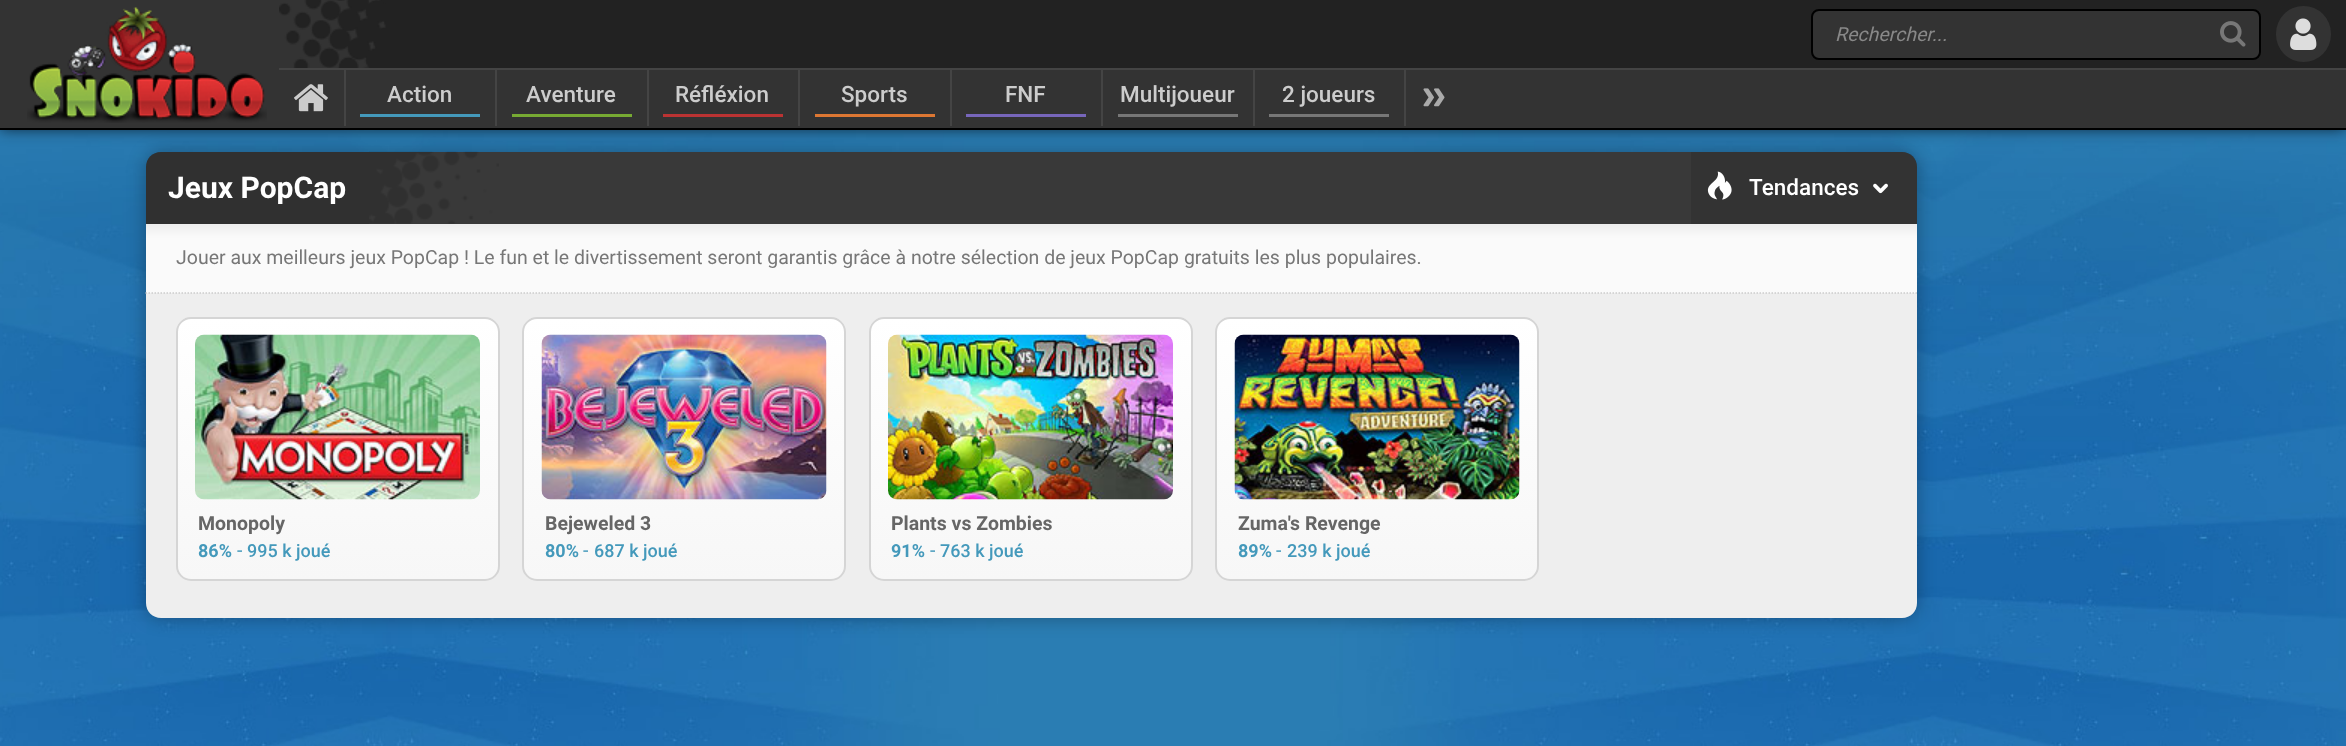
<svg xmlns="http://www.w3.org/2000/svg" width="2346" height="746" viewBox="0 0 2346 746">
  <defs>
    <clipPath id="clip1"><rect x="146" y="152" width="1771" height="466" rx="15"/></clipPath>
    <clipPath id="clip2"><rect x="176" y="317" width="324" height="264" rx="15"/></clipPath>
    <linearGradient id="g1" gradientUnits="userSpaceOnUse" x1="338" y1="318" x2="338" y2="579"><stop offset="0" stop-color="#fff"/><stop offset="1" stop-color="#f7f7f7"/></linearGradient>
    <clipPath id="clip3"><rect x="522" y="317" width="324" height="264" rx="15"/></clipPath>
    <linearGradient id="g2" gradientUnits="userSpaceOnUse" x1="684" y1="318" x2="684" y2="579"><stop offset="0" stop-color="#fff"/><stop offset="1" stop-color="#f7f7f7"/></linearGradient>
    <clipPath id="clip4"><rect x="869" y="317" width="324" height="264" rx="15"/></clipPath>
    <linearGradient id="g3" gradientUnits="userSpaceOnUse" x1="1031" y1="318" x2="1031" y2="579"><stop offset="0" stop-color="#fff"/><stop offset="1" stop-color="#f7f7f7"/></linearGradient>
    <clipPath id="clip5"><rect x="1215" y="317" width="324" height="264" rx="15"/></clipPath>
    <linearGradient id="g4" gradientUnits="userSpaceOnUse" x1="1377" y1="318" x2="1377" y2="579"><stop offset="0" stop-color="#fff"/><stop offset="1" stop-color="#f7f7f7"/></linearGradient>
  </defs>
  <rect width="100%" height="100%" fill="#fff"/>
  <image x="0" y="130" width="2346" height="616" href="img/7.png"/>
  <rect x="146" y="152" width="1771" height="466" rx="15" fill="#0000004d" filter="blur(9px)"/>
  <path d="M146 224h1771v69H146z" fill="#fafafa"/>
  <g clip-path="url(#clip1)">
    <path d="M138 144h1787v87H138z" fill="#0000000d" filter="blur(4px)"/>
  </g>
  <path d="M161 152H1902C1910.5 152 1917 158.5 1917 167V224H146V167C146 158.5 152.5 152 161 152Z" fill="#393939"/>
  <path d="M161 152H369V224H146V167C146 158.5 152.5 152 161 152Z" fill="#00000026"/>
  <image x="369" y="151" width="130" height="73" href="img/8.png"/>
  <path d="M1691 152H1902C1910.5 152 1917 158.5 1917 167V224H1691Z" fill="#0000001a"/>
  <path d="M0 0h2346v129H0z" fill="#000000b3" filter="blur(7.5px)"/>
  <path d="M0 0h2346v128H0z" fill="#333"/>
  <path d="M0 128h2346v2H0z" fill="#000"/>
  <image x="27" y="7" width="240" height="116" href="img/1.png"/>
  <image x="279" y="0" width="2067" height="68" href="img/2.png"/>
  <path d="M344 69h2v57H344z" fill="#444"/>
  <path d="M495 69h2v57H495z" fill="#444"/>
  <path d="M647 69h2v57H647z" fill="#444"/>
  <path d="M798 69h2v57H798z" fill="#444"/>
  <path d="M950 69h2v57H950z" fill="#444"/>
  <path d="M1101 69h2v57H1101z" fill="#444"/>
  <path d="M1253 69h2v57H1253z" fill="#444"/>
  <path d="M1404 69h2v57H1404z" fill="#444"/>
  <path d="M279 68h2067v2H279z" fill="#444"/>
  <rect x="1812" y="10" width="448" height="49" rx="7" fill="#333" stroke="#000" stroke-width="2"/>
  <image x="2220" y="21" width="26" height="26" href="img/3.png"/>
  <rect x="2276" y="6" width="55" height="56" rx="27.5" fill="#333"/>
  <image x="2290" y="18" width="27" height="32" href="img/4.png"/>
  <image x="294" y="84" width="34" height="28" href="img/5.png"/>
  <path d="M360 114h120v3H360z" fill="#49b"/>
  <path d="M512 114h120v3H512z" fill="#7a3"/>
  <path d="M663 114h120v3H663z" fill="#b33"/>
  <path d="M815 114h120v3H815z" fill="#d73"/>
  <path d="M966 114h120v3H966z" fill="#76b"/>
  <path d="M1118 114h120v3H1118z" fill="#777"/>
  <path d="M1269 114h120v3H1269z" fill="#777"/>
  <image x="1423" y="88" width="22" height="19" href="img/6.png"/>
  <image x="1707" y="171" width="25" height="29" href="img/9.png"/>
  <image x="1873" y="183" width="15" height="11" href="img/10.png"/>
  <path d="M146 293H1917V603C1917 611.5 1910.5 618 1902 618H161C152.5 618 146 611.5 146 603Z" fill="#eee"/>
  <path d="M145.5 293H1917" fill="none" stroke="#ccc" stroke-width="1.5" stroke-dasharray="1.5 1.5"/>
  <g clip-path="url(#clip2)">
    <path d="M177 318h321v261H177z" fill="url(#g1)"/>
  </g>
  <rect x="177" y="318" width="322" height="262" rx="14" fill="none" stroke="#d5d5d5" stroke-width="2"/>
  <image x="195" y="334" width="285" height="166" href="img/11.png"/>
  <g clip-path="url(#clip3)">
    <path d="M524 318h321v261H524z" fill="url(#g2)"/>
  </g>
  <rect x="523" y="318" width="322" height="262" rx="14" fill="none" stroke="#d5d5d5" stroke-width="2"/>
  <image x="541" y="334" width="286" height="166" href="img/12.png"/>
  <g clip-path="url(#clip4)">
    <path d="M870 318h321v261H870z" fill="url(#g3)"/>
  </g>
  <rect x="870" y="318" width="322" height="262" rx="14" fill="none" stroke="#d5d5d5" stroke-width="2"/>
  <image x="888" y="334" width="285" height="166" href="img/13.png"/>
  <g clip-path="url(#clip5)">
    <path d="M1217 318h321v261H1217z" fill="url(#g4)"/>
  </g>
  <rect x="1216" y="318" width="322" height="262" rx="14" fill="none" stroke="#d5d5d5" stroke-width="2"/>
  <image x="1234" y="334" width="286" height="166" href="img/14.png"/>
  <text x="1835" y="41" font-family="Roboto" font-size="19.5" font-style="italic" fill="#888">Rechercher...</text>
  <g font-family="Roboto" font-size="22.5" font-weight="500" fill="#ccc">
    <text x="387" y="102">Action</text>
    <text x="526" y="102">Aventure</text>
    <text x="675" y="102">Réfléxion</text>
    <text x="841" y="102">Sports</text>
    <text x="1005" y="102">FNF</text>
    <text x="1120" y="102">Multijoueur</text>
    <text x="1282" y="102">2 joueurs</text>
  </g>
  <text x="168" y="198" font-family="Roboto" font-size="30" font-weight="bold" fill="#fff">Jeux PopCap</text>
  <text x="1749" y="195" font-family="Roboto" font-size="22.5" font-weight="500" fill="#fff">Tendances</text>
  <text x="176" y="264" font-family="Roboto" font-size="19.5" fill="#777">Jouer aux meilleurs jeux PopCap ! Le fun et le divertissement seront garantis grâce à notre sélection de jeux PopCap gratuits les plus populaires.</text>
  <text x="198" y="530" font-family="Roboto" font-size="19.5" font-weight="bold" fill="#666">Monopoly</text>
  <text x="198" y="557" font-family="Roboto" font-size="18" font-weight="bold" fill="#49b">86%</text>
  <text x="237" y="557" font-family="Roboto" font-size="19.5" fill="#49b">-</text>
  <text x="247" y="557" font-family="Roboto" font-size="18" font-weight="500" fill="#49b">995 k joué</text>
  <text x="545" y="530" font-family="Roboto" font-size="19.5" font-weight="bold" fill="#666">Bejeweled 3</text>
  <text x="545" y="557" font-family="Roboto" font-size="18" font-weight="bold" fill="#49b">80%</text>
  <text x="583" y="557" font-family="Roboto" font-size="19.5" fill="#49b">-</text>
  <text x="594" y="557" font-family="Roboto" font-size="18" font-weight="500" fill="#49b">687 k joué</text>
  <text x="891" y="530" font-family="Roboto" font-size="19.5" font-weight="bold" fill="#666">Plants vs Zombies</text>
  <text x="891" y="557" font-family="Roboto" font-size="18" font-weight="bold" fill="#49b">91%</text>
  <text x="930" y="557" font-family="Roboto" font-size="19.5" fill="#49b">-</text>
  <text x="940" y="557" font-family="Roboto" font-size="18" font-weight="500" fill="#49b">763 k joué</text>
  <text x="1238" y="530" font-family="Roboto" font-size="19.5" font-weight="bold" fill="#666">Zuma's Revenge</text>
  <text x="1238" y="557" font-family="Roboto" font-size="18" font-weight="bold" fill="#49b">89%</text>
  <text x="1276" y="557" font-family="Roboto" font-size="19.5" fill="#49b">-</text>
  <text x="1287" y="557" font-family="Roboto" font-size="18" font-weight="500" fill="#49b">239 k joué</text>
</svg>
